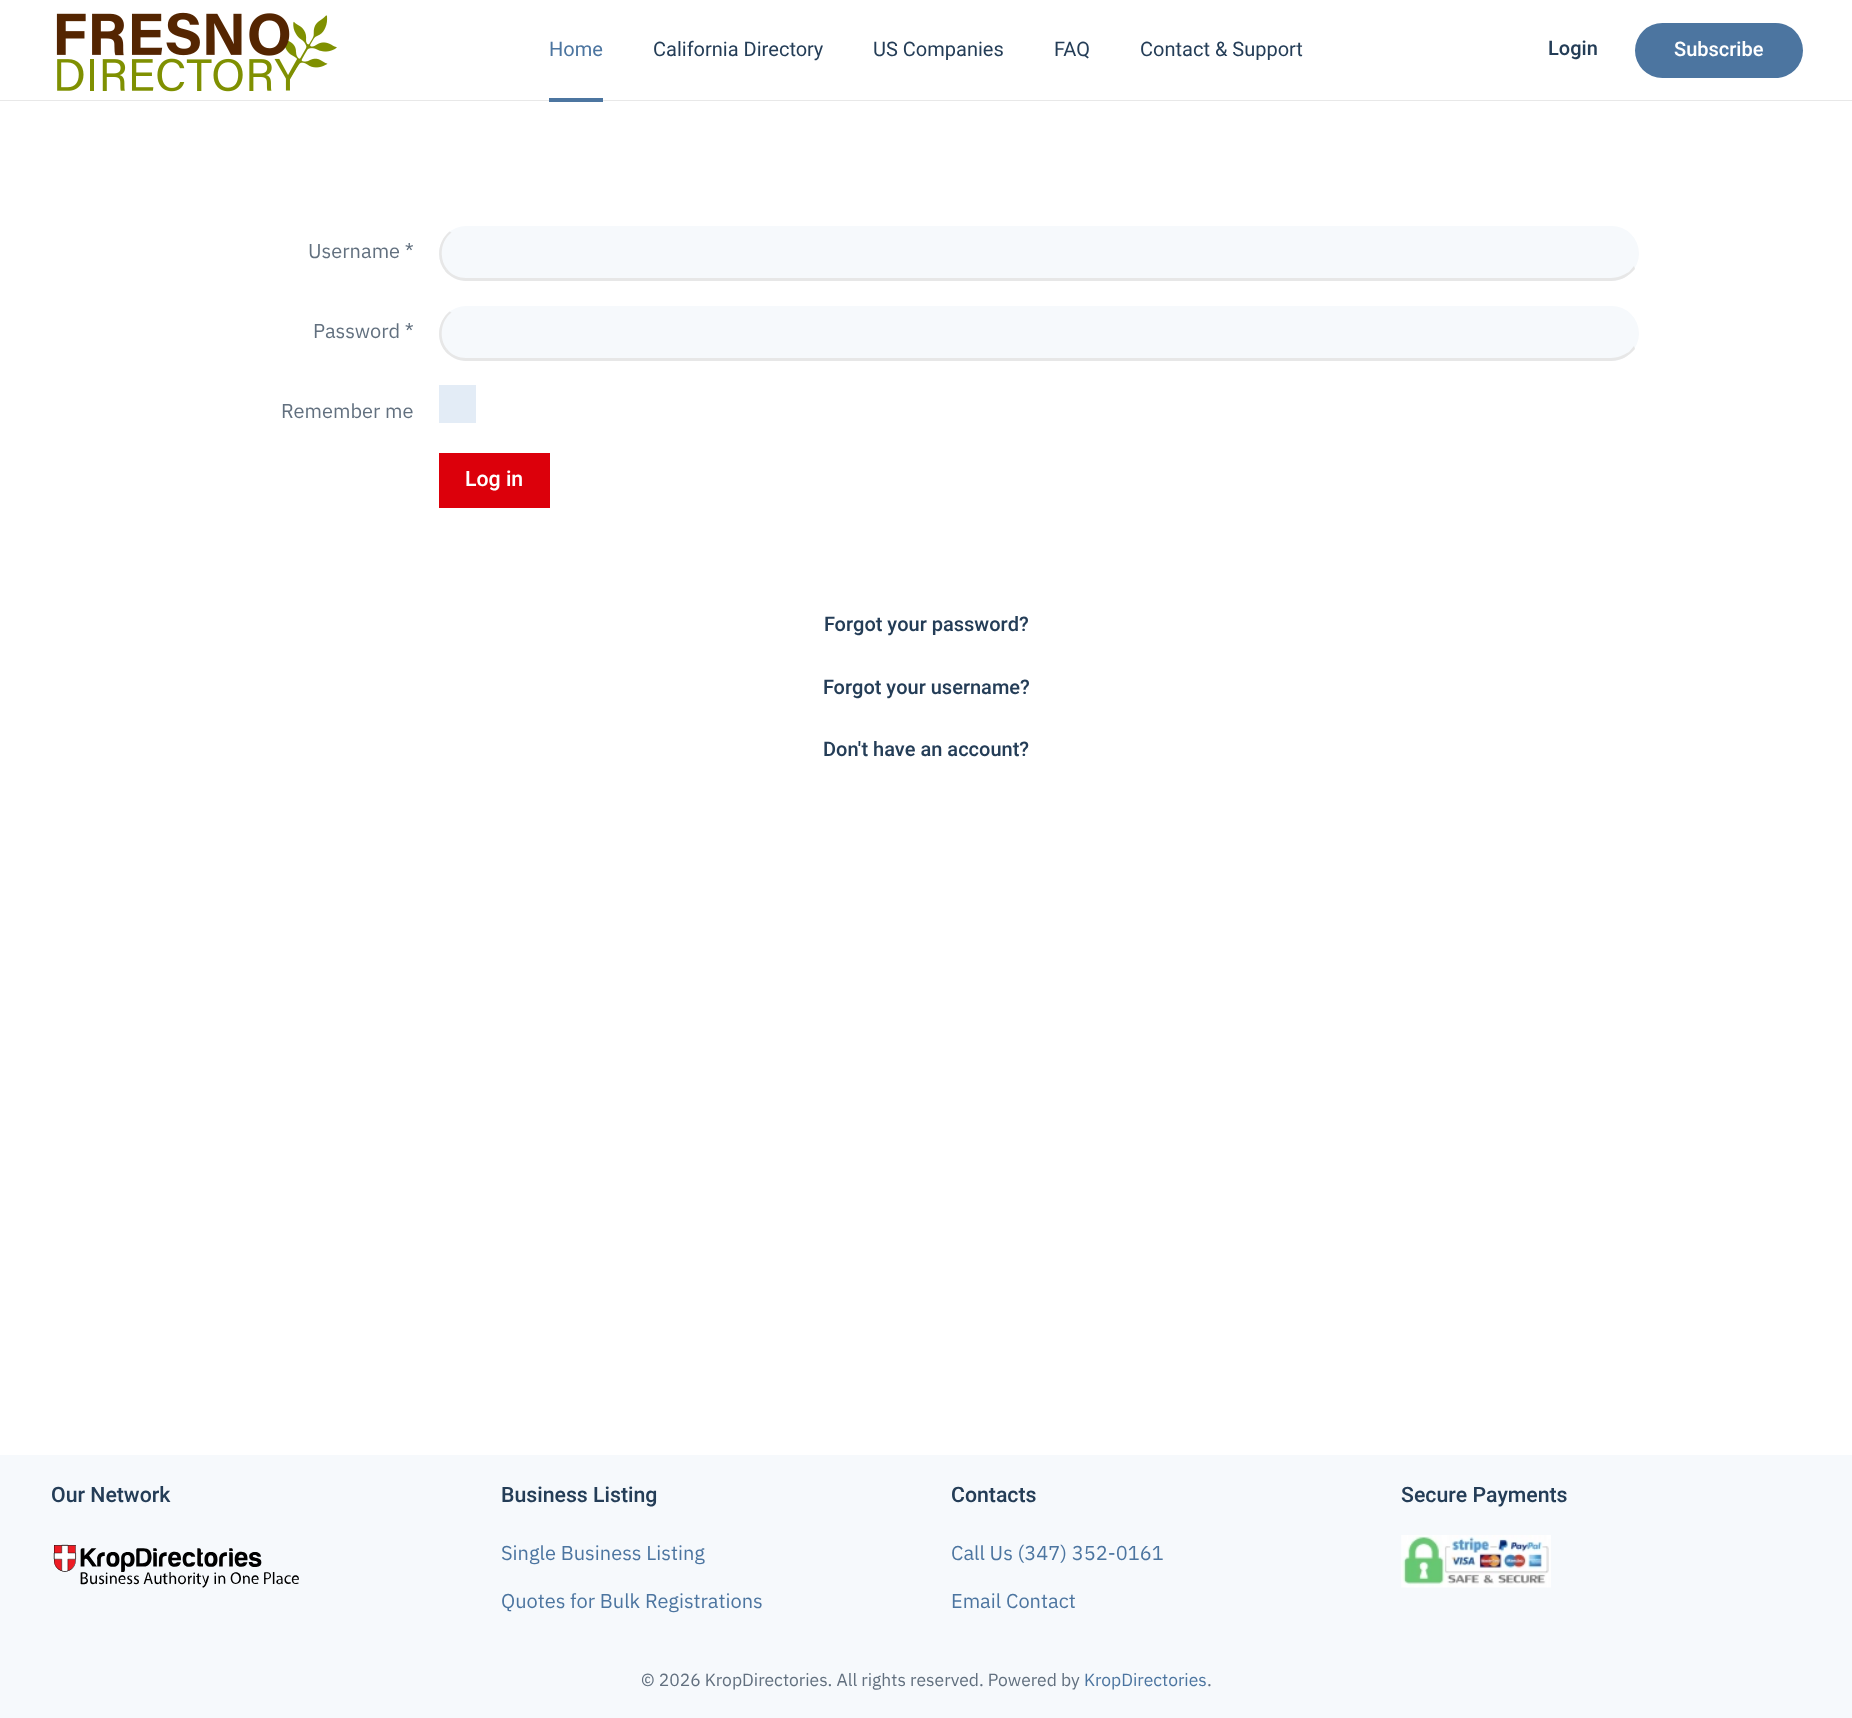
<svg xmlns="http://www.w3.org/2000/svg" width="1852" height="1718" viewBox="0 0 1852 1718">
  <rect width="100%" height="100%" fill="#fff"/>
  <path d="M0 100h1852v1H0z" fill="#e8e8e8"/>
  <image x="56" y="12" width="281" height="80" href="img/1.png"/>
  <path d="M549 98h54v4H549z" fill="#4c75a0"/>
  <rect x="1635" y="23" width="168" height="55" rx="27.5" fill="#4c75a0"/>
  <rect x="439" y="226" width="1200" height="55" rx="27.5" fill="#f6f9fc"/>
  <path d="M1635 269C1629 276 1621 281 1611 281H466C458 281 450 277 445 271L447 269C451 275 459 278 466 278H1611C1617 278 1624 275 1629 272L1634 266Z" fill="#e7e7e7"/>
  <path d="M445.5 271.5C435.5 259.5 437.5 241.5 449.5 231.5L451.5 232.5C440.5 241 438.5 258.5 447 269Z" fill="#e7e7e7"/>
  <rect x="439" y="306" width="1200" height="55" rx="27.5" fill="#f6f9fc"/>
  <path d="M1635 349C1629 356 1621 361 1611 361H466C458 361 450 357 445 351L447 349C451 355 459 358 466 358H1611C1617 358 1624 355 1629 352L1634 346Z" fill="#e7e7e7"/>
  <path d="M445.5 351.5C435.5 339.5 437.5 321.5 449.5 311.5L451.5 312.5C440.5 321 438.5 338.5 447 349Z" fill="#e7e7e7"/>
  <path d="M439 385h37v38H439z" fill="#e3ecf6"/>
  <path d="M439 453h111v55H439z" fill="#dc000b"/>
  <path d="M0 1455h1852v263H0z" fill="#f6f9fc"/>
  <image x="53" y="1544" width="246" height="44" href="img/2.png"/>
  <image x="1401" y="1535" width="150" height="53" href="img/3.png"/>
  <text x="549" y="56" font-family="Heebo" font-size="20" fill="#4c75a0">Home</text>
  <g font-family="Heebo" font-size="20" fill="#243d57">
    <text x="653" y="56">California Directory</text>
    <text x="873" y="56">US Companies</text>
    <text x="1054" y="56">FAQ</text>
    <text x="1140" y="56">Contact &amp; Support</text>
  </g>
  <text x="1548" y="55" font-family="Heebo" font-size="20" font-weight="500" fill="#243d57">Login</text>
  <text x="1674" y="56" font-family="Heebo" font-size="20" font-weight="500" fill="#fff">Subscribe</text>
  <g font-family="IBM Plex Sans" font-size="20" fill="#62707f">
    <text x="308" y="258">Username *</text>
    <text x="313" y="338">Password *</text>
    <text x="281" y="418">Remember me</text>
  </g>
  <text x="465" y="486" font-family="Heebo" font-size="21.25" font-weight="500" fill="#fff">Log in</text>
  <g font-family="Heebo" font-size="20" font-weight="500" fill="#243d57">
    <text x="824" y="631">Forgot your password?</text>
    <text x="823" y="694">Forgot your username?</text>
    <text x="823" y="756">Don't have an account?</text>
  </g>
  <g font-family="Heebo" font-size="21.25" font-weight="500" fill="#243d57">
    <text x="51" y="1502">Our Network</text>
    <text x="501" y="1502">Business Listing</text>
  </g>
  <g font-family="IBM Plex Sans" font-size="20" fill="#4c75a0">
    <text x="501" y="1560">Single Business Listing</text>
    <text x="501" y="1608">Quotes for Bulk Registrations</text>
  </g>
  <text x="951" y="1502" font-family="Heebo" font-size="21.25" font-weight="500" fill="#243d57">Contacts</text>
  <g font-family="IBM Plex Sans" font-size="20" fill="#4c75a0">
    <text x="951" y="1560">Call Us (347) 352-0161</text>
    <text x="951" y="1608">Email Contact</text>
  </g>
  <text x="1401" y="1502" font-family="Heebo" font-size="21.25" font-weight="500" fill="#243d57">Secure Payments</text>
  <text x="641" y="1686" font-family="IBM Plex Sans" font-size="17.5" fill="#62707f">© 2026 KropDirectories. All rights reserved. Powered by</text>
  <text x="1084" y="1686" font-family="IBM Plex Sans" font-size="17.5" fill="#4c75a0">KropDirectories</text>
  <text x="1207" y="1686" font-family="IBM Plex Sans" font-size="17.5" fill="#62707f">.</text>
</svg>
